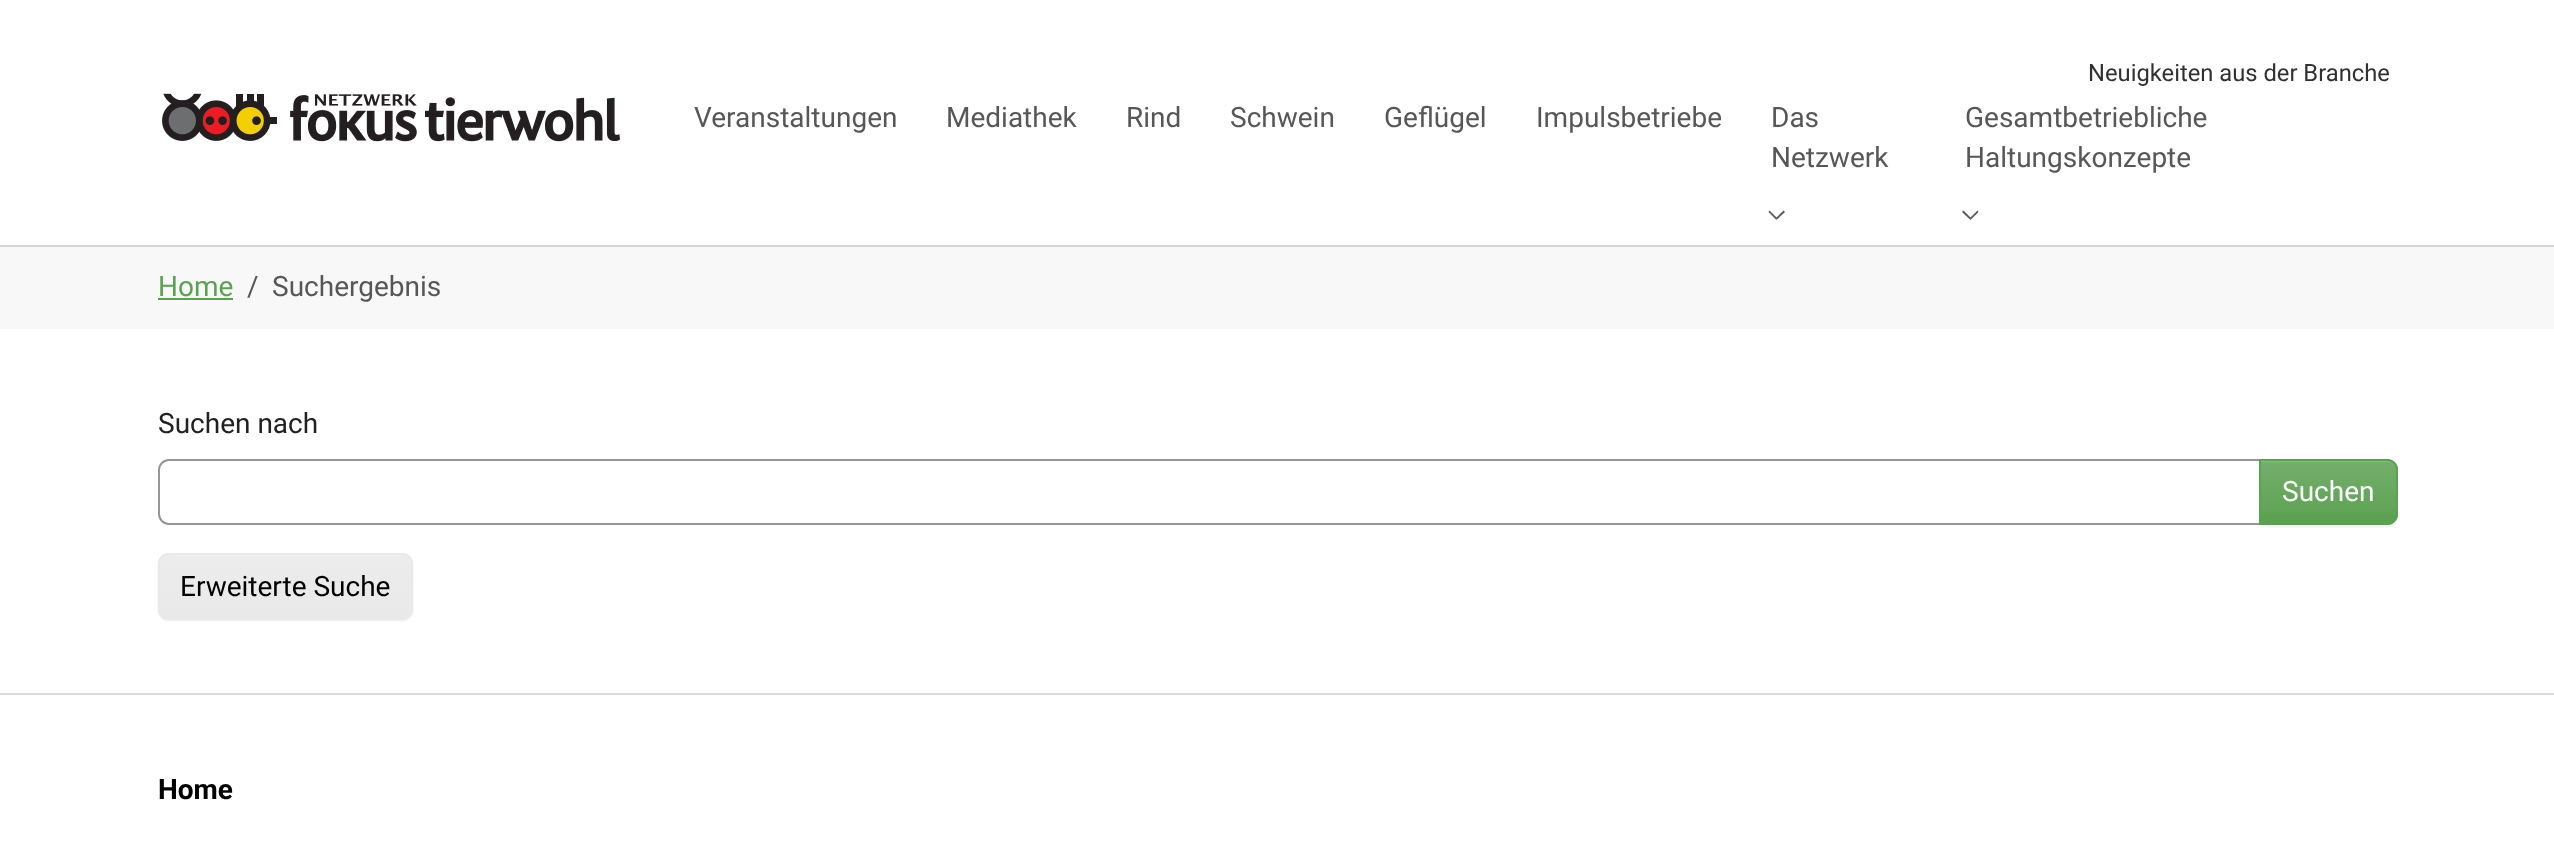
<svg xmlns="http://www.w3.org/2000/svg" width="2554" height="847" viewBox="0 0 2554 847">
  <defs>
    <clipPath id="clip1"><path d="M2259 459H2387C2393 459 2398 464 2398 470V514C2398 520 2393 525 2387 525H2259Z"/></clipPath>
    <linearGradient id="g1" gradientUnits="userSpaceOnUse" x1="2328" y1="460" x2="2328" y2="523"><stop offset="0" stop-color="#fff" stop-opacity="0.15"/><stop offset="1" stop-color="#fff" stop-opacity="0"/></linearGradient>
    <clipPath id="clip2"><rect x="158" y="553" width="255" height="67" rx="11"/></clipPath>
    <linearGradient id="g2" gradientUnits="userSpaceOnUse" x1="285" y1="555" x2="285" y2="618"><stop offset="0" stop-color="#fff" stop-opacity="0.15"/><stop offset="1" stop-color="#fff" stop-opacity="0"/></linearGradient>
  </defs>
  <rect width="100%" height="100%" fill="#fff"/>
  <path d="M0 245h2554v2H0z" fill="#d3d3d3"/>
  <image x="162" y="93" width="458" height="49" href="img/1.png"/>
  <path d="M1776.5 220L1768.5 212L1769.5 210.5L1776.5 217.5Z" fill="#595959"/>
  <path d="M1785 212L1776.5 220V217.5L1783.5 210.5Z" fill="#000000a6"/>
  <path d="M1970.5 220L1962 212L1963.5 210.5L1970.5 217.5Z" fill="#595959"/>
  <path d="M1978.5 212L1970.5 220V217.5L1977.5 210.5Z" fill="#000000a6"/>
  <path d="M0 247h2554v82H0z" fill="#f8f8f8"/>
  <path d="M158 298h75v2H158z" fill="#5ca152"/>
  <path d="M169 460H2260V524H169C163.5 524 159 519.5 159 514V470C159 464.5 163.5 460 169 460Z" fill="none" stroke="#959595" stroke-width="2"/>
  <rect x="2259" y="460" width="139" height="67" rx="11" fill="#00000012" filter="blur(1px)"/>
  <path d="M2259 459H2387C2393 459 2398 464 2398 470V514C2398 520 2393 525 2387 525H2259Z" fill="#5ca152"/>
  <g clip-path="url(#clip1)">
    <path d="M2261 460h137v54H2261z" fill="url(#g1)"/>
  </g>
  <path d="M2261 462H2387C2392 462 2396 466 2396 471V469C2396 464 2392 460 2387 460H2261Z" fill="#ffffff26"/>
  <path d="M2260 460H2387C2392.5 460 2397 464.5 2397 470V514C2397 519.5 2392.5 524 2387 524H2260Z" fill="none" stroke="#5ca152" stroke-width="2"/>
  <rect x="158" y="555" width="255" height="66" rx="11" fill="#00000012" filter="blur(1px)"/>
  <rect x="158" y="553" width="255" height="67" rx="11" fill="#e9e9e9"/>
  <g clip-path="url(#clip2)">
    <path d="M158 555h255v54H158z" fill="url(#g2)"/>
  </g>
  <path d="M168 556H402C407 556 411 560 411 565V564C411 559 407 555 402 555H168C163 555 159 559 159 564V565C159 560 163 556 168 556Z" fill="#efefef"/>
  <rect x="159" y="554" width="253" height="65" rx="10" fill="none" stroke="#e9e9e9" stroke-width="2"/>
  <path d="M0 693h2554v2H0z" fill="#dadada"/>
  <text x="2088" y="81" font-family="Roboto" font-size="23.75" fill="#313131">Neuigkeiten aus der Branche</text>
  <g font-family="Roboto" font-size="28" fill="#575757">
    <text x="694" y="127">Veranstaltungen</text>
    <text x="946" y="127">Mediathek</text>
    <text x="1126" y="127">Rind</text>
    <text x="1230" y="127">Schwein</text>
    <text x="1384" y="127">Geflügel</text>
    <text x="1536" y="127">Impulsbetriebe</text>
    <text x="1771" y="127">Das</text>
    <text x="1771" y="167">Netzwerk</text>
    <text x="1965" y="127">Gesamtbetriebliche</text>
    <text x="1965" y="167">Haltungskonzepte</text>
  </g>
  <text x="158" y="296" font-family="Roboto" font-size="28" fill="#5ca152">Home</text>
  <g font-family="Roboto" font-size="28" fill="#575757">
    <text x="247" y="296">/</text>
    <text x="272" y="296">Suchergebnis</text>
  </g>
  <text x="158" y="433" font-family="Roboto" font-size="28" fill="#212121">Suchen nach</text>
  <text x="2282" y="501" font-family="Roboto" font-size="28" fill="#fff">Suchen</text>
  <text x="180" y="596" font-family="Roboto" font-size="28" fill="#000">Erweiterte Suche</text>
  <text x="158" y="799" font-family="Roboto" font-size="28" font-weight="bold" fill="#000">Home</text>
</svg>
